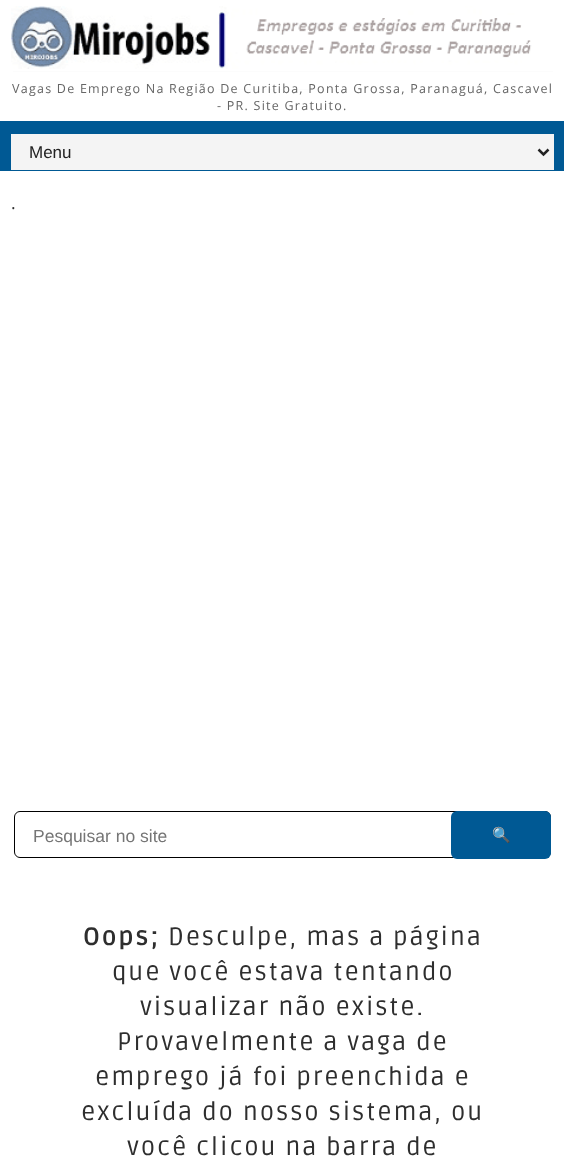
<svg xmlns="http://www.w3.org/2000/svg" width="564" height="1159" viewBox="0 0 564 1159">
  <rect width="100%" height="100%" fill="#fff"/>
  <image x="11" y="6" width="521" height="63" href="img/1.png"/>
  <path d="M13 71h540v1H13z" fill="#fcfcfc"/>
  <path d="M218 89h130v1H218z" fill="#fcfcfc"/>
  <path d="M0 121h564v50H0z" fill="#005994"/>
  <path d="M11 134h543v36H11z" fill="#f4f4f4"/>
  <path d="M538.5 149.5L543.5 154.5L548.5 149.5" fill="none" stroke="#222" stroke-width="2.5"/>
  <rect x="14.5" y="811.5" width="536" height="46" rx="5.5" fill="none" stroke="#000"/>
  <rect x="451" y="811" width="100" height="48" rx="6" fill="#005994"/>
  <g font-family="Open Sans" font-size="12.5" letter-spacing="1.25" fill="#666">
    <text x="12" y="93">Vagas De Emprego Na Região De Curitiba, Ponta Grossa, Paranaguá, Cascavel</text>
    <text x="217" y="110">- PR. Site Gratuito.</text>
  </g>
  <text x="29" y="158" font-family="Liberation Sans" font-size="17" fill="#222">Menu</text>
  <text x="11" y="209" font-family="Open Sans" font-size="17.5" fill="#2e2e2e">.</text>
  <text x="33" y="842" font-family="Liberation Sans" font-size="17.5" fill="#757575">Pesquisar no site</text>
  <text x="492" y="840" font-family="Noto Color Emoji" font-size="15" fill="#fff">🔍</text>
  <text x="83" y="945" font-family="Ruda" font-size="25" font-weight="bold" letter-spacing="1.9" fill="#2e2e2e">Oops;</text>
  <g font-family="Ruda" font-size="25" letter-spacing="1.9" fill="#2e2e2e">
    <text x="168" y="945">Desculpe, mas a página</text>
    <text x="112" y="980">que você estava tentando</text>
    <text x="140" y="1015">visualizar não existe.</text>
    <text x="117" y="1050">Provavelmente a vaga de</text>
    <text x="95" y="1085">emprego já foi preenchida e</text>
    <text x="81" y="1120">excluída do nosso sistema, ou</text>
    <text x="127" y="1155">você clicou na barra de</text>
  </g>
</svg>
